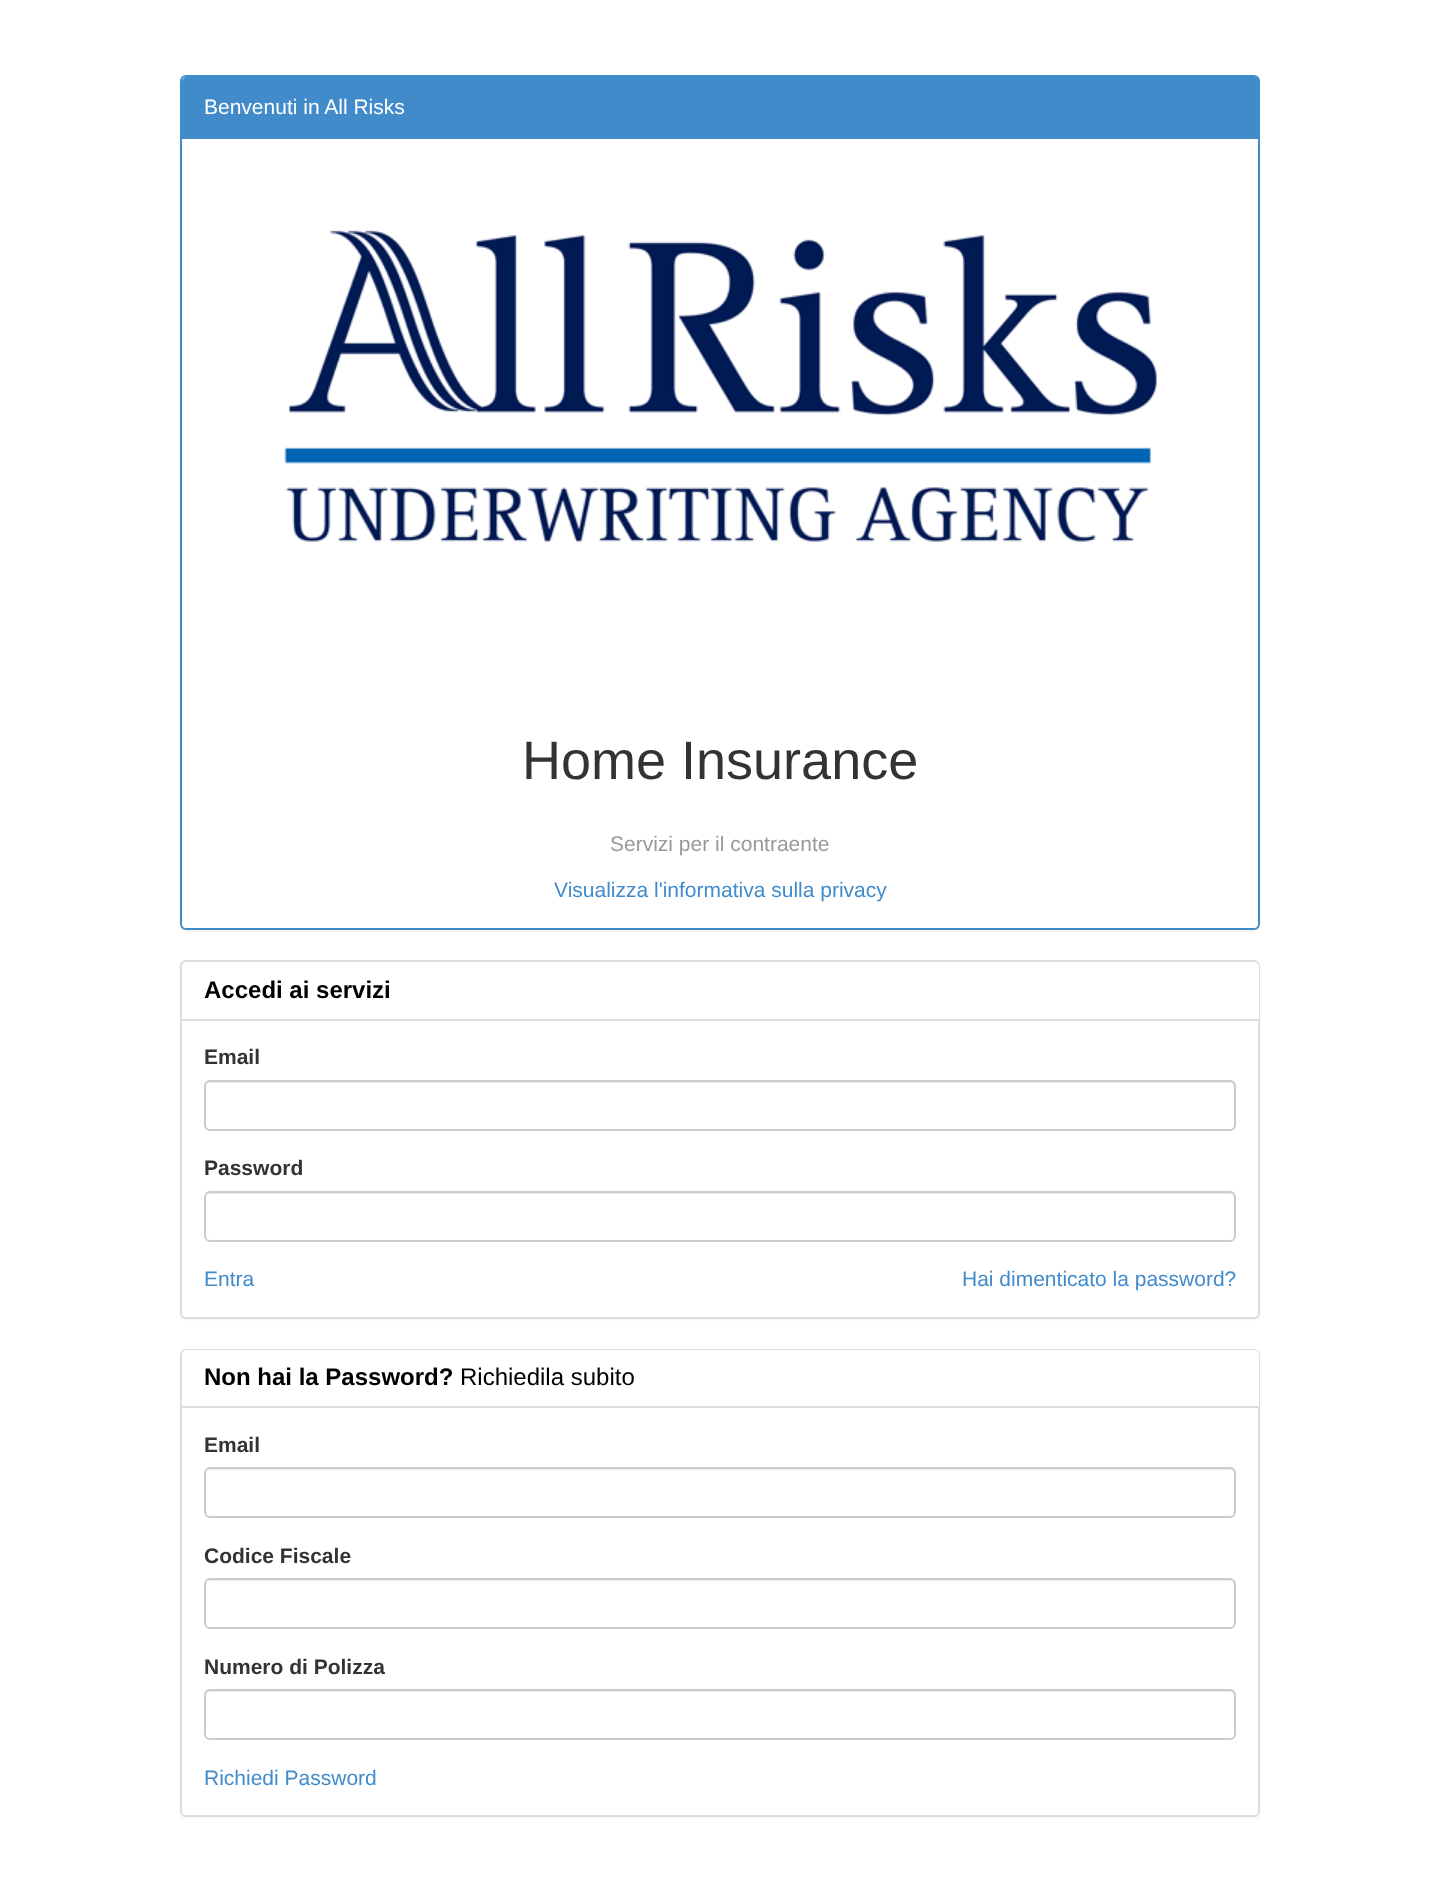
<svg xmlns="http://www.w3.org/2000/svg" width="1440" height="1888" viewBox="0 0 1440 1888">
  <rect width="100%" height="100%" fill="#fff"/>
  <rect x="180" y="77" width="1080" height="855" rx="6" fill="#0000000d" filter="blur(1px)"/>
  <rect x="181" y="76" width="1078" height="853" rx="5" fill="#fff" stroke="#428bca" stroke-width="2"/>
  <path d="M187 77H1254C1257 77 1259 79 1259 82V138H182V82C182 79 184 77 187 77Z" fill="#428bca"/>
  <path d="M182 138h1077v1H182z" fill="#428bca"/>
  <image x="284" y="230" width="873" height="312" href="img/1.png"/>
  <rect x="180" y="962" width="1080" height="358" rx="6" fill="#0000000d" filter="blur(1px)"/>
  <rect x="181" y="961" width="1078" height="357" rx="5" fill="#fff" stroke="#ddd" stroke-width="2"/>
  <path d="M187 962H1254C1257 962 1259 964 1259 967V1020H182V967C182 964 184 962 187 962Z" fill="#fff"/>
  <path d="M182 1019h1077v2H182z" fill="#ddd"/>
  <path d="M210 1083H1230C1232 1083 1234 1085 1234 1088V1126L1233 1129C1234 1128 1235 1126 1235 1125V1087C1235 1084 1233 1082 1230 1082H211C208 1082 206 1084 206 1087V1088C206 1085 208 1083 210 1083Z" fill="#ececec"/>
  <rect x="205" y="1081" width="1030" height="49" rx="5" fill="none" stroke="#ccc" stroke-width="2"/>
  <path d="M210 1194H1230C1232 1194 1234 1196 1234 1198V1239C1235 1238 1235 1237 1235 1236V1198C1235 1195 1233 1193 1230 1193H211C208 1193 206 1195 206 1198C206 1196 208 1194 210 1194Z" fill="#ececec"/>
  <rect x="205" y="1192" width="1030" height="49" rx="5" fill="none" stroke="#ccc" stroke-width="2"/>
  <rect x="180" y="1350" width="1080" height="468" rx="6" fill="#0000000d" filter="blur(1px)"/>
  <rect x="181" y="1350" width="1078" height="466" rx="5" fill="#fff" stroke="#ddd" stroke-width="2"/>
  <path d="M187 1350H1254C1257 1350 1259 1352 1259 1355V1407H182V1355C182 1352 184 1350 187 1350Z" fill="#fff"/>
  <path d="M182 1406h1077v2H182z" fill="#ddd"/>
  <path d="M210 1470H1230C1232 1470 1234 1472 1234 1474V1515C1235 1514 1235 1513 1235 1512V1474C1235 1471 1233 1469 1230 1469H211C208 1469 206 1471 206 1474C206 1472 208 1470 210 1470Z" fill="#ececec"/>
  <rect x="205" y="1468" width="1030" height="49" rx="5" fill="none" stroke="#ccc" stroke-width="2"/>
  <path d="M210 1581H1230C1232 1581 1234 1583 1234 1586V1624L1233 1627C1234 1626 1235 1624 1235 1623V1585C1235 1582 1233 1580 1230 1580H211C208 1580 206 1582 206 1585V1586C206 1583 208 1581 210 1581Z" fill="#ececec"/>
  <rect x="205" y="1579" width="1030" height="49" rx="5" fill="none" stroke="#ccc" stroke-width="2"/>
  <path d="M210 1692H1230C1232 1692 1234 1694 1234 1696V1737C1235 1736 1235 1735 1235 1734V1696C1235 1693 1233 1691 1230 1691H211C208 1691 206 1693 206 1696C206 1694 208 1692 210 1692Z" fill="#ececec"/>
  <rect x="205" y="1690" width="1030" height="49" rx="5" fill="none" stroke="#ccc" stroke-width="2"/>
  <text x="204" y="114" font-family="Liberation Sans" font-size="21" fill="#fff">Benvenuti in All Risks</text>
  <text x="522" y="779" font-family="Liberation Sans" font-size="54" fill="#333">Home Insurance</text>
  <text x="610" y="851" font-family="Liberation Sans" font-size="21" fill="#999">Servizi per il contraente</text>
  <text x="554" y="897" font-family="Liberation Sans" font-size="21" fill="#428bca">Visualizza l'informativa sulla privacy</text>
  <text x="204" y="998" font-family="Liberation Sans" font-size="24" font-weight="bold" fill="#000">Accedi ai servizi</text>
  <g font-family="Liberation Sans" font-size="21" font-weight="bold" fill="#333">
    <text x="204" y="1064">Email</text>
    <text x="204" y="1175">Password</text>
  </g>
  <g font-family="Liberation Sans" font-size="21" fill="#428bca">
    <text x="204" y="1286">Entra</text>
    <text x="962" y="1286">Hai dimenticato la password?</text>
  </g>
  <text x="204" y="1385" font-family="Liberation Sans" font-size="24" font-weight="bold" fill="#000">Non hai la Password?</text>
  <text x="460" y="1385" font-family="Liberation Sans" font-size="24" fill="#000">Richiedila subito</text>
  <g font-family="Liberation Sans" font-size="21" font-weight="bold" fill="#333">
    <text x="204" y="1452">Email</text>
    <text x="204" y="1563">Codice Fiscale</text>
    <text x="204" y="1674">Numero di Polizza</text>
  </g>
  <text x="204" y="1785" font-family="Liberation Sans" font-size="21" fill="#428bca">Richiedi Password</text>
</svg>
